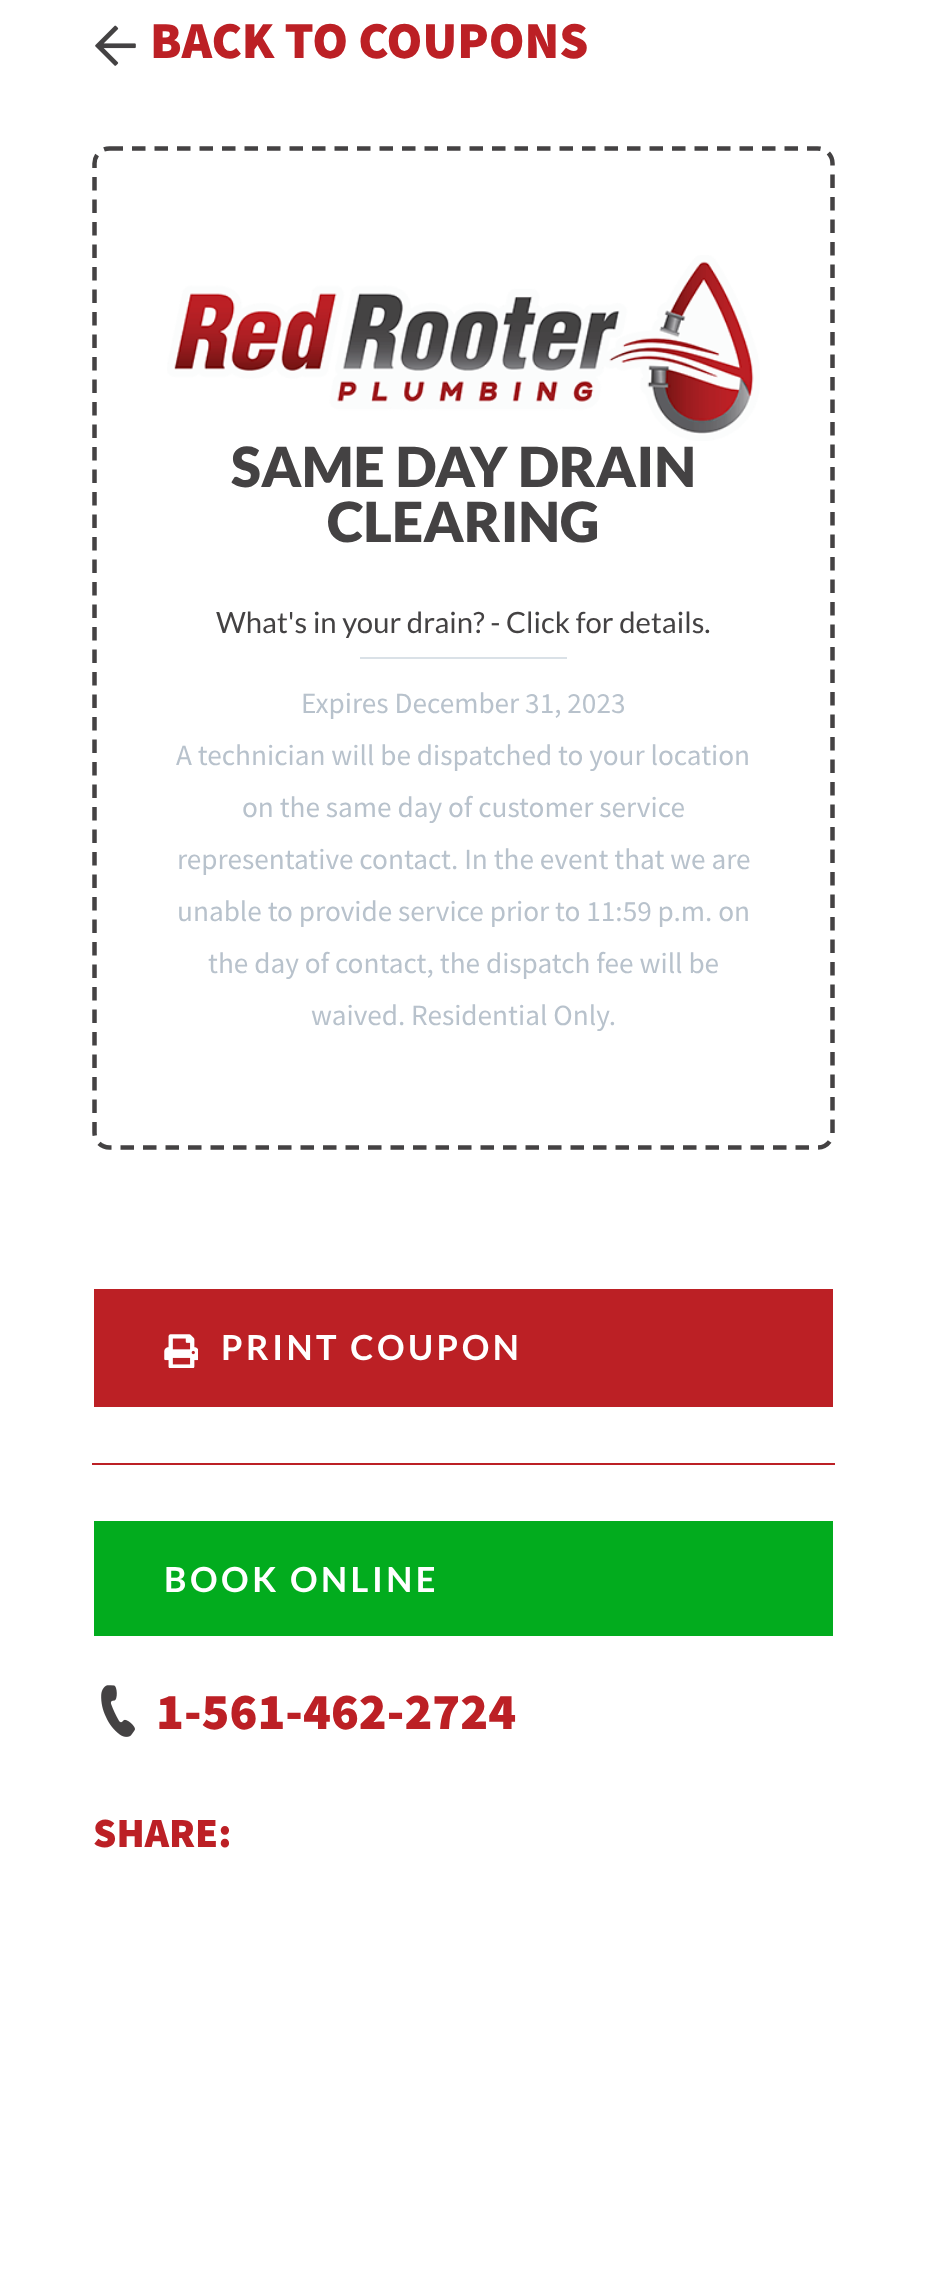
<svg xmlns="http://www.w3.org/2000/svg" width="925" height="2273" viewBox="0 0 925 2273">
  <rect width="100%" height="100%" fill="#fff"/>
  <image x="95" y="25" width="41" height="41" href="img/1.png"/>
  <path d="M109.5 148.5H817.5C826 148.5 832.5 155 832.5 163.5V1132.5C832.5 1141 826 1147.5 817.5 1147.5H109.5C101 1147.5 94.5 1141 94.5 1132.5V163.5C94.5 155 101 148.5 109.5 148.5Z" fill="none" stroke="#444243" stroke-width="4.5" stroke-dasharray="13.5 9"/>
  <image x="167" y="255" width="593" height="186" href="img/2.png"/>
  <path d="M360 657h207v2H360z" fill="#dae1e7"/>
  <path d="M94 1289h739v118H94z" fill="#bc2025"/>
  <image x="164" y="1334" width="34" height="34" href="img/3.png"/>
  <path d="M92 1463h743v2H92z" fill="#bc2025"/>
  <path d="M94 1521h739v115H94z" fill="#02ac1e"/>
  <image x="101" y="1685" width="34" height="52" href="img/4.png"/>
  <text x="150" y="58" font-family="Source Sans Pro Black" font-size="51.75" font-weight="900" fill="#bc2025">BACK TO COUPONS</text>
  <g font-family="Lato" font-size="55.25" font-weight="900" fill="#444243">
    <text x="231" y="487">SAME DAY DRAIN</text>
    <text x="327" y="542">CLEARING</text>
  </g>
  <text x="216" y="633" font-family="Lato" font-size="29.25" fill="#444243">What's in your drain? - Click for details.</text>
  <g font-family="Source Sans Pro" font-size="29.25" fill="#b8c2cc">
    <text x="301" y="713">Expires December 31, 2023</text>
    <text x="176" y="765">A technician will be dispatched to your location</text>
    <text x="242" y="817">on the same day of customer service</text>
    <text x="177" y="869">representative contact. In the event that we are</text>
    <text x="177" y="921">unable to provide service prior to 11:59 p.m. on</text>
    <text x="208" y="973">the day of contact, the dispatch fee will be</text>
    <text x="311" y="1025">waived. Residential Only.</text>
  </g>
  <g font-family="Lato" font-size="34.5" font-weight="bold" letter-spacing="3.5" fill="#fff">
    <text x="221" y="1360">PRINT COUPON</text>
    <text x="164" y="1592">BOOK ONLINE</text>
  </g>
  <text x="156" y="1729" font-family="Source Sans Pro Black" font-size="51.75" font-weight="900" fill="#bc2025">1-561-462-2724</text>
  <text x="93" y="1847" font-family="Source Sans Pro Black" font-size="41.5" font-weight="900" fill="#bc2025">SHARE:</text>
</svg>
